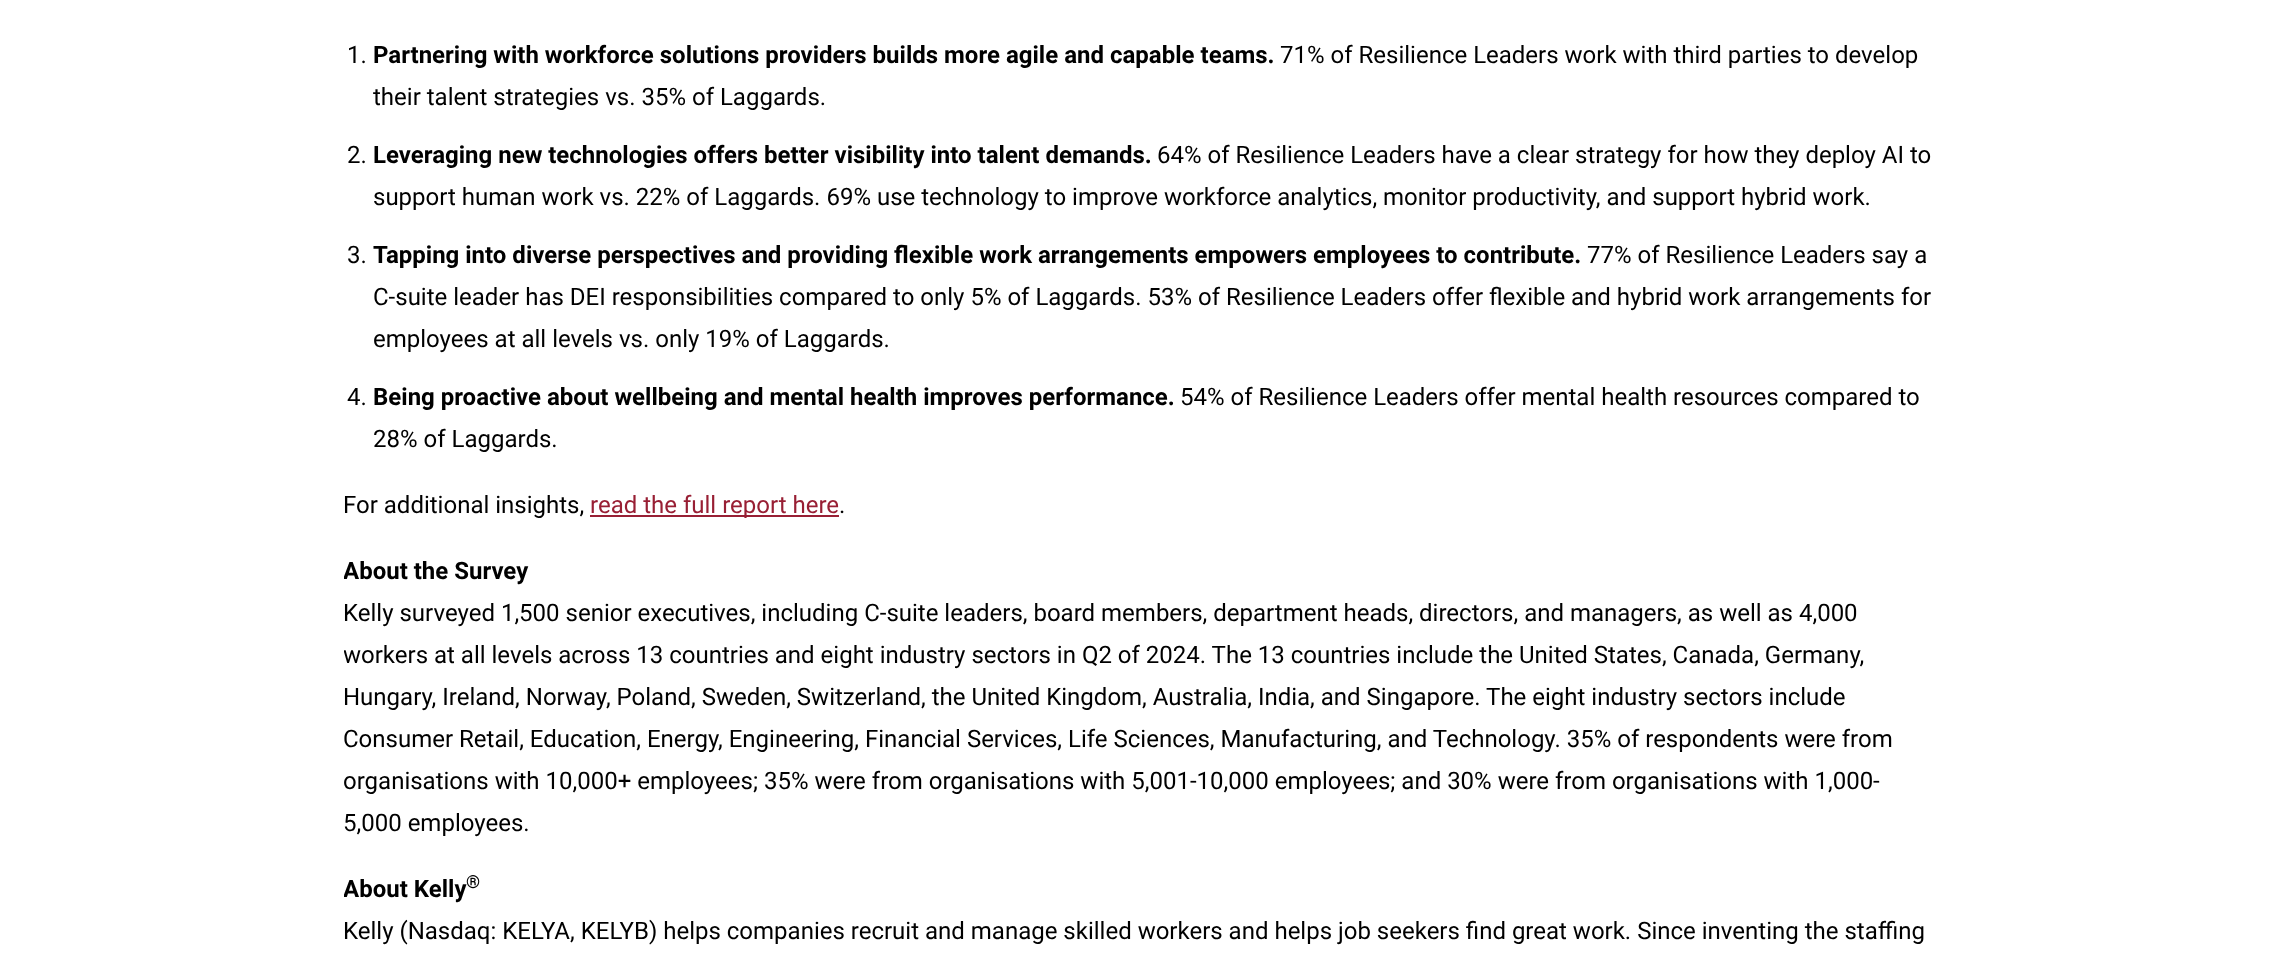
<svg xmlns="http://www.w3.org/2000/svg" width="2275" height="971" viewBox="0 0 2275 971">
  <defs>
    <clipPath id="clip1"><path d="M344 0h1590v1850H344z"/></clipPath>
  </defs>
  <rect width="100%" height="100%" fill="#fff"/>
  <path d="M590 515h249v2H590z" fill="#981f34"/>
  <text x="347" y="63" font-family="Roboto" font-size="24" fill="#000">1.</text>
  <text x="373" y="63" font-family="Roboto" font-size="24" font-weight="bold" fill="#000">Partnering with workforce solutions providers builds more agile and capable teams.</text>
  <g font-family="Roboto" font-size="24" fill="#000">
    <text x="1280" y="63">71% of Resilience Leaders work with third parties to develop</text>
    <text x="373" y="105">their talent strategies vs. 35% of Laggards.</text>
    <text x="347" y="163">2.</text>
  </g>
  <text x="373" y="163" font-family="Roboto" font-size="24" font-weight="bold" fill="#000">Leveraging new technologies offers better visibility into talent demands.</text>
  <g font-family="Roboto" font-size="24" fill="#000">
    <text x="1157" y="163">64% of Resilience Leaders have a clear strategy for how they deploy AI to</text>
    <text x="373" y="205">support human work vs. 22% of Laggards. 69% use technology to improve workforce analytics, monitor productivity, and support hybrid work.</text>
    <text x="347" y="263">3.</text>
  </g>
  <text x="373" y="263" font-family="Roboto" font-size="24" font-weight="bold" fill="#000">Tapping into diverse perspectives and providing flexible work arrangements empowers employees to contribute.</text>
  <g font-family="Roboto" font-size="24" fill="#000">
    <text x="1587" y="263">77% of Resilience Leaders say a</text>
    <text x="373" y="305">C-suite leader has DEI responsibilities compared to only 5% of Laggards. 53% of Resilience Leaders offer flexible and hybrid work arrangements for</text>
    <text x="373" y="347">employees at all levels vs. only 19% of Laggards.</text>
    <text x="347" y="405">4.</text>
  </g>
  <text x="373" y="405" font-family="Roboto" font-size="24" font-weight="bold" fill="#000">Being proactive about wellbeing and mental health improves performance.</text>
  <g font-family="Roboto" font-size="24" fill="#000">
    <text x="1180" y="405">54% of Resilience Leaders offer mental health resources compared to</text>
    <text x="373" y="447">28% of Laggards.</text>
    <text x="343" y="513">For additional insights,</text>
  </g>
  <text x="590" y="513" font-family="Roboto" font-size="24" fill="#981f34">read the full report here</text>
  <text x="839" y="513" font-family="Roboto" font-size="24" fill="#000">.</text>
  <g clip-path="url(#clip1)">
    <text x="343" y="579" font-family="Roboto" font-size="24" font-weight="bold" fill="#000">About the Survey</text>
  </g>
  <text x="343" y="621" font-family="Roboto" font-size="24" fill="#000">Kelly surveyed 1,500 senior executives, including C-suite leaders, board members, department heads, directors, and managers, as well as 4,000</text>
  <g clip-path="url(#clip1)">
    <text x="343" y="663" font-family="Roboto" font-size="24" fill="#000">workers at all levels across 13 countries and eight industry sectors in Q2 of 2024. The 13 countries include the United States, Canada, Germany,</text>
  </g>
  <g font-family="Roboto" font-size="24" fill="#000">
    <text x="343" y="705">Hungary, Ireland, Norway, Poland, Sweden, Switzerland, the United Kingdom, Australia, India, and Singapore. The eight industry sectors include</text>
    <text x="343" y="747">Consumer Retail, Education, Energy, Engineering, Financial Services, Life Sciences, Manufacturing, and Technology. 35% of respondents were from</text>
  </g>
  <g clip-path="url(#clip1)">
    <text x="343" y="789" font-family="Roboto" font-size="24" fill="#000">organisations with 10,000+ employees; 35% were from organisations with 5,001-10,000 employees; and 30% were from organisations with 1,000-</text>
  </g>
  <text x="343" y="831" font-family="Roboto" font-size="24" fill="#000">5,000 employees.</text>
  <g clip-path="url(#clip1)">
    <text x="343" y="897" font-family="Roboto" font-size="24" font-weight="bold" fill="#000">About Kelly</text>
  </g>
  <text x="466" y="888" font-family="Roboto" font-size="18" font-weight="bold" fill="#000">®</text>
  <text x="343" y="939" font-family="Roboto" font-size="24" fill="#000">Kelly (Nasdaq: KELYA, KELYB) helps companies recruit and manage skilled workers and helps job seekers find great work. Since inventing the staffing</text>
</svg>
